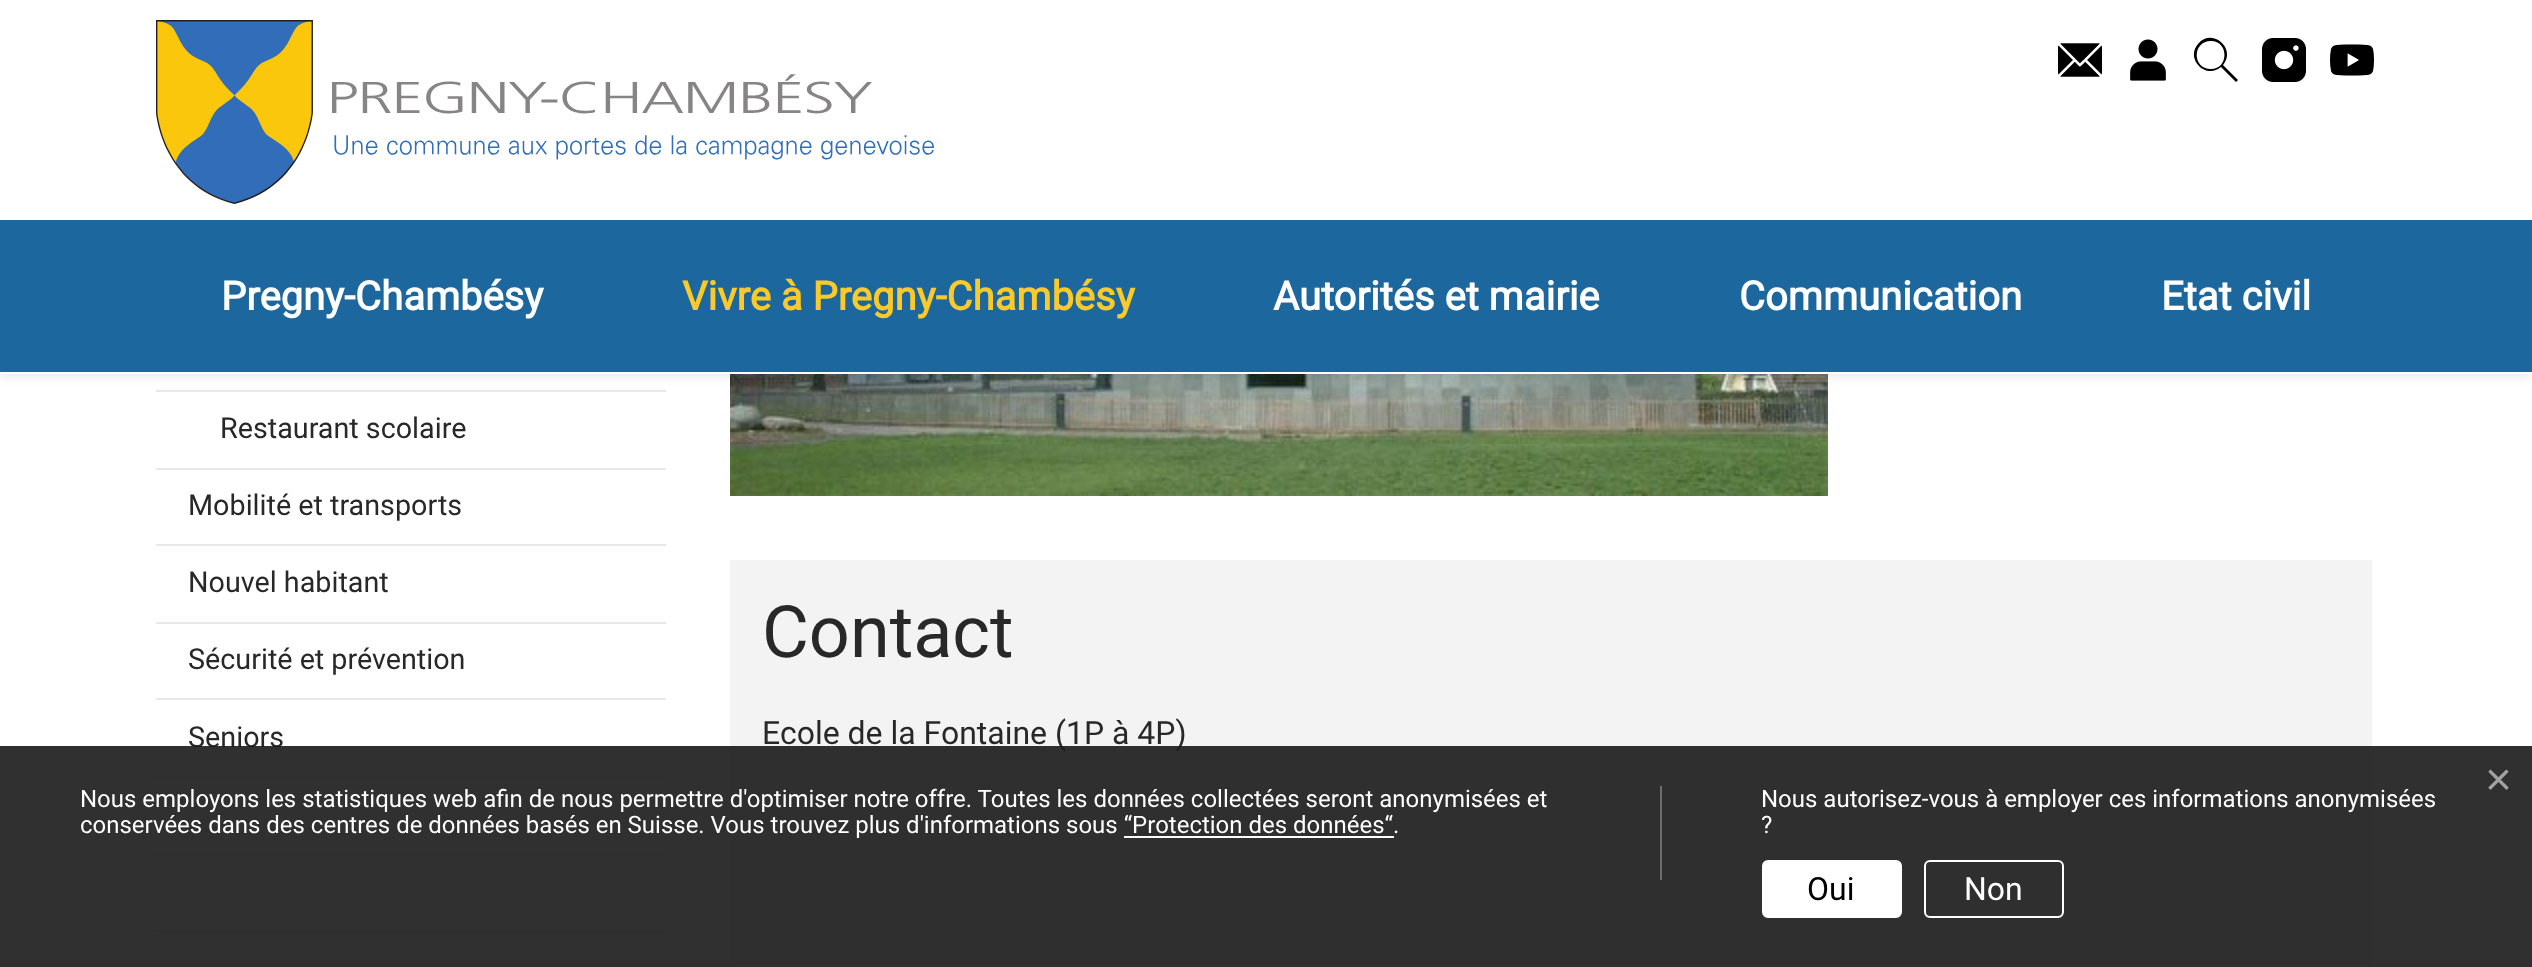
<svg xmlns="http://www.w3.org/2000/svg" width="2532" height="967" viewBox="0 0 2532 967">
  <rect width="100%" height="100%" fill="#fff"/>
  <path d="M156 390h510v2H156z" fill="#e8e8e8"/>
  <image x="730" y="374" width="1098" height="122" href="img/6.png"/>
  <path d="M0 4h2532v374H0z" fill="#00000012" filter="blur(4px)"/>
  <path d="M0 0h2532v374H0z" fill="#fff"/>
  <image x="156" y="20" width="778" height="184" href="img/1.png"/>
  <image x="2058" y="43" width="44" height="34" href="img/2.png"/>
  <image x="2130" y="39" width="36" height="42" href="img/3.png"/>
  <path d="M2223 65C2237 49 2212 27 2198 44C2185 59 2206 80 2221 67L2236 82L2238 80ZM2211 69C2192 69 2192 41 2211 41C2229 41 2229 69 2211 69Z" fill="#000"/>
  <image x="2262" y="38" width="44" height="44" href="img/4.png"/>
  <image x="2330" y="44" width="44" height="32" href="img/5.png"/>
  <path d="M0 220h2532v152H0z" fill="#1c689e"/>
  <path d="M156 468h510v2H156z" fill="#e8e8e8"/>
  <path d="M156 544h510v2H156z" fill="#e8e8e8"/>
  <path d="M156 622h510v2H156z" fill="#e8e8e8"/>
  <path d="M156 698h510v2H156z" fill="#e8e8e8"/>
  <path d="M156 776h510v2H156z" fill="#e8e8e8"/>
  <path d="M156 854h510v2H156z" fill="#e8e8e8"/>
  <path d="M156 930h510v2H156z" fill="#e8e8e8"/>
  <path d="M730 560h1642v406H730z" fill="#f3f3f3"/>
  <text x="221" y="310" font-family="Roboto" font-size="40" font-weight="bold" fill="#fff">Pregny-Chambésy</text>
  <text x="682" y="310" font-family="Roboto" font-size="40" font-weight="bold" fill="#f9ca2a">Vivre à Pregny-Chambésy</text>
  <g font-family="Roboto" font-size="40" font-weight="bold" fill="#fff">
    <text x="1273" y="310">Autorités et mairie</text>
    <text x="1739" y="310">Communication</text>
    <text x="2161" y="310">Etat civil</text>
  </g>
  <g font-family="Roboto" font-size="28.75" fill="#282828">
    <text x="220" y="438">Restaurant scolaire</text>
    <text x="188" y="515">Mobilité et transports</text>
    <text x="188" y="592">Nouvel habitant</text>
    <text x="188" y="669">Sécurité et prévention</text>
    <text x="188" y="747">Seniors</text>
  </g>
  <text x="762" y="657" font-family="Roboto" font-size="72" fill="#282828">Contact</text>
  <text x="762" y="744" font-family="Roboto" font-size="32" fill="#282828">Ecole de la Fontaine (1P à 4P)</text>
  <path d="M0 746h2532v221H0z" fill="#191919e6"/>
  <text x="2485" y="795" font-family="Liberation Sans" font-size="46" fill="#a2a2a2">×</text>
  <path d="M1660 786h2v94H1660z" fill="#6d6d6d"/>
  <g font-family="Roboto" font-size="24" fill="#fff">
    <text x="80" y="807">Nous employons les statistiques web afin de nous permettre d'optimiser notre offre. Toutes les données collectées seront anonymisées et</text>
    <text x="80" y="833">conservées dans des centres de données basés en Suisse. Vous trouvez plus d'informations sous “Protection des données“.</text>
  </g>
  <path d="M1124 836h270v2H1124z" fill="#fff"/>
  <g font-family="Roboto" font-size="24" fill="#fff">
    <text x="1761" y="807">Nous autorisez-vous à employer ces informations anonymisées</text>
    <text x="1761" y="833">?</text>
  </g>
  <rect x="1763" y="861" width="138" height="56" rx="5" fill="#fff" stroke="#fff" stroke-width="2"/>
  <text x="1807" y="900" font-family="Roboto" font-size="32" fill="#000">Oui</text>
  <rect x="1925" y="861" width="138" height="56" rx="5" fill="none" stroke="#fff" stroke-width="2"/>
  <text x="1964" y="900" font-family="Roboto" font-size="32" fill="#fff">Non</text>
</svg>
